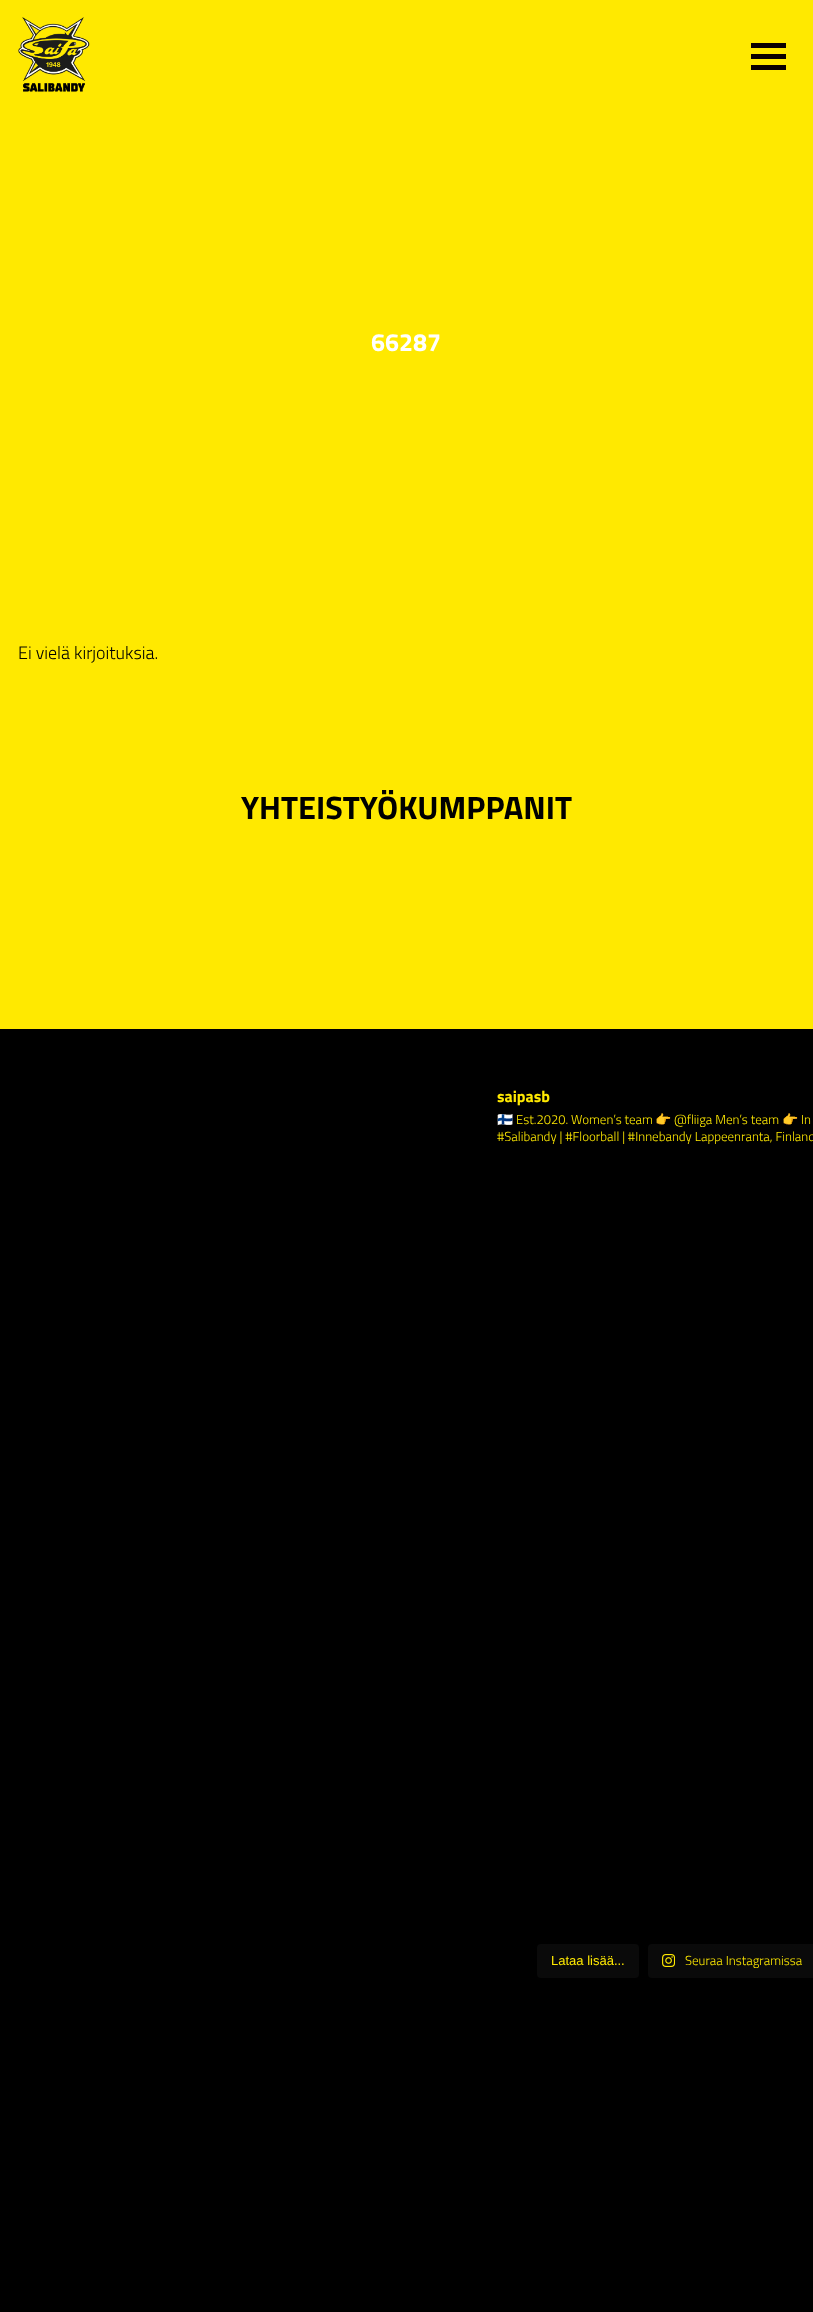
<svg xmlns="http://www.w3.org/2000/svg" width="813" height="2312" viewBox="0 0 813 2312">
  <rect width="100%" height="100%" fill="#ffe900"/>
  <image x="18" y="17" width="72" height="75" href="img/1.png"/>
  <path d="M751 43h35v5H751z" fill="#0a0000"/>
  <path d="M751 54h35v5H751z" fill="#0a0000"/>
  <path d="M751 65h35v5H751z" fill="#0a0000"/>
  <path d="M0 1029h813v1283H0z" fill="#000"/>
  <rect x="537" y="1944" width="102" height="34" rx="4" fill="#0a0a0a"/>
  <rect x="648" y="1944" width="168" height="34" rx="4" fill="#0a0a0a"/>
  <image x="662" y="1954" width="13" height="13" href="img/2.png"/>
  <text x="371" y="351" font-family="Titillium Web" font-size="25" font-weight="bold" fill="#fff">66287</text>
  <text x="18" y="659" font-family="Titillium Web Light" font-size="18" font-weight="300" fill="#000">Ei vielä kirjoituksia.</text>
  <text x="241" y="819" font-family="Titillium Web" font-size="32.4" font-weight="bold" fill="#000">YHTEISTYÖKUMPPANIT</text>
  <text x="497" y="1102" font-family="Titillium Web" font-size="16" font-weight="bold" fill="#ffe900">saipasb</text>
  <text x="497" y="1124" font-family="Noto Color Emoji" font-size="13" fill="#ffe900">🇫🇮</text>
  <text x="516" y="1124" font-family="Titillium Web Light" font-size="13" font-weight="300" fill="#ffe900">Est.2020. Women’s team</text>
  <text x="655" y="1124" font-family="Noto Color Emoji" font-size="13" fill="#ffe900">👉</text>
  <text x="674" y="1124" font-family="Titillium Web Light" font-size="13" font-weight="300" fill="#ffe900">@fliiga Men’s team</text>
  <text x="782" y="1124" font-family="Noto Color Emoji" font-size="13" fill="#ffe900">👉</text>
  <g font-family="Titillium Web Light" font-size="13" font-weight="300" fill="#ffe900">
    <text x="801" y="1124">In</text>
    <text x="497" y="1141">#Salibandy | #Floorball | #Innebandy Lappeenranta, Finland</text>
  </g>
  <text x="551" y="1965" font-family="Liberation Sans" font-size="13" fill="#ffe900">Lataa lisää...</text>
  <text x="685" y="1965" font-family="Titillium Web Light" font-size="13" font-weight="300" fill="#ffe900">Seuraa Instagramissa</text>
</svg>
